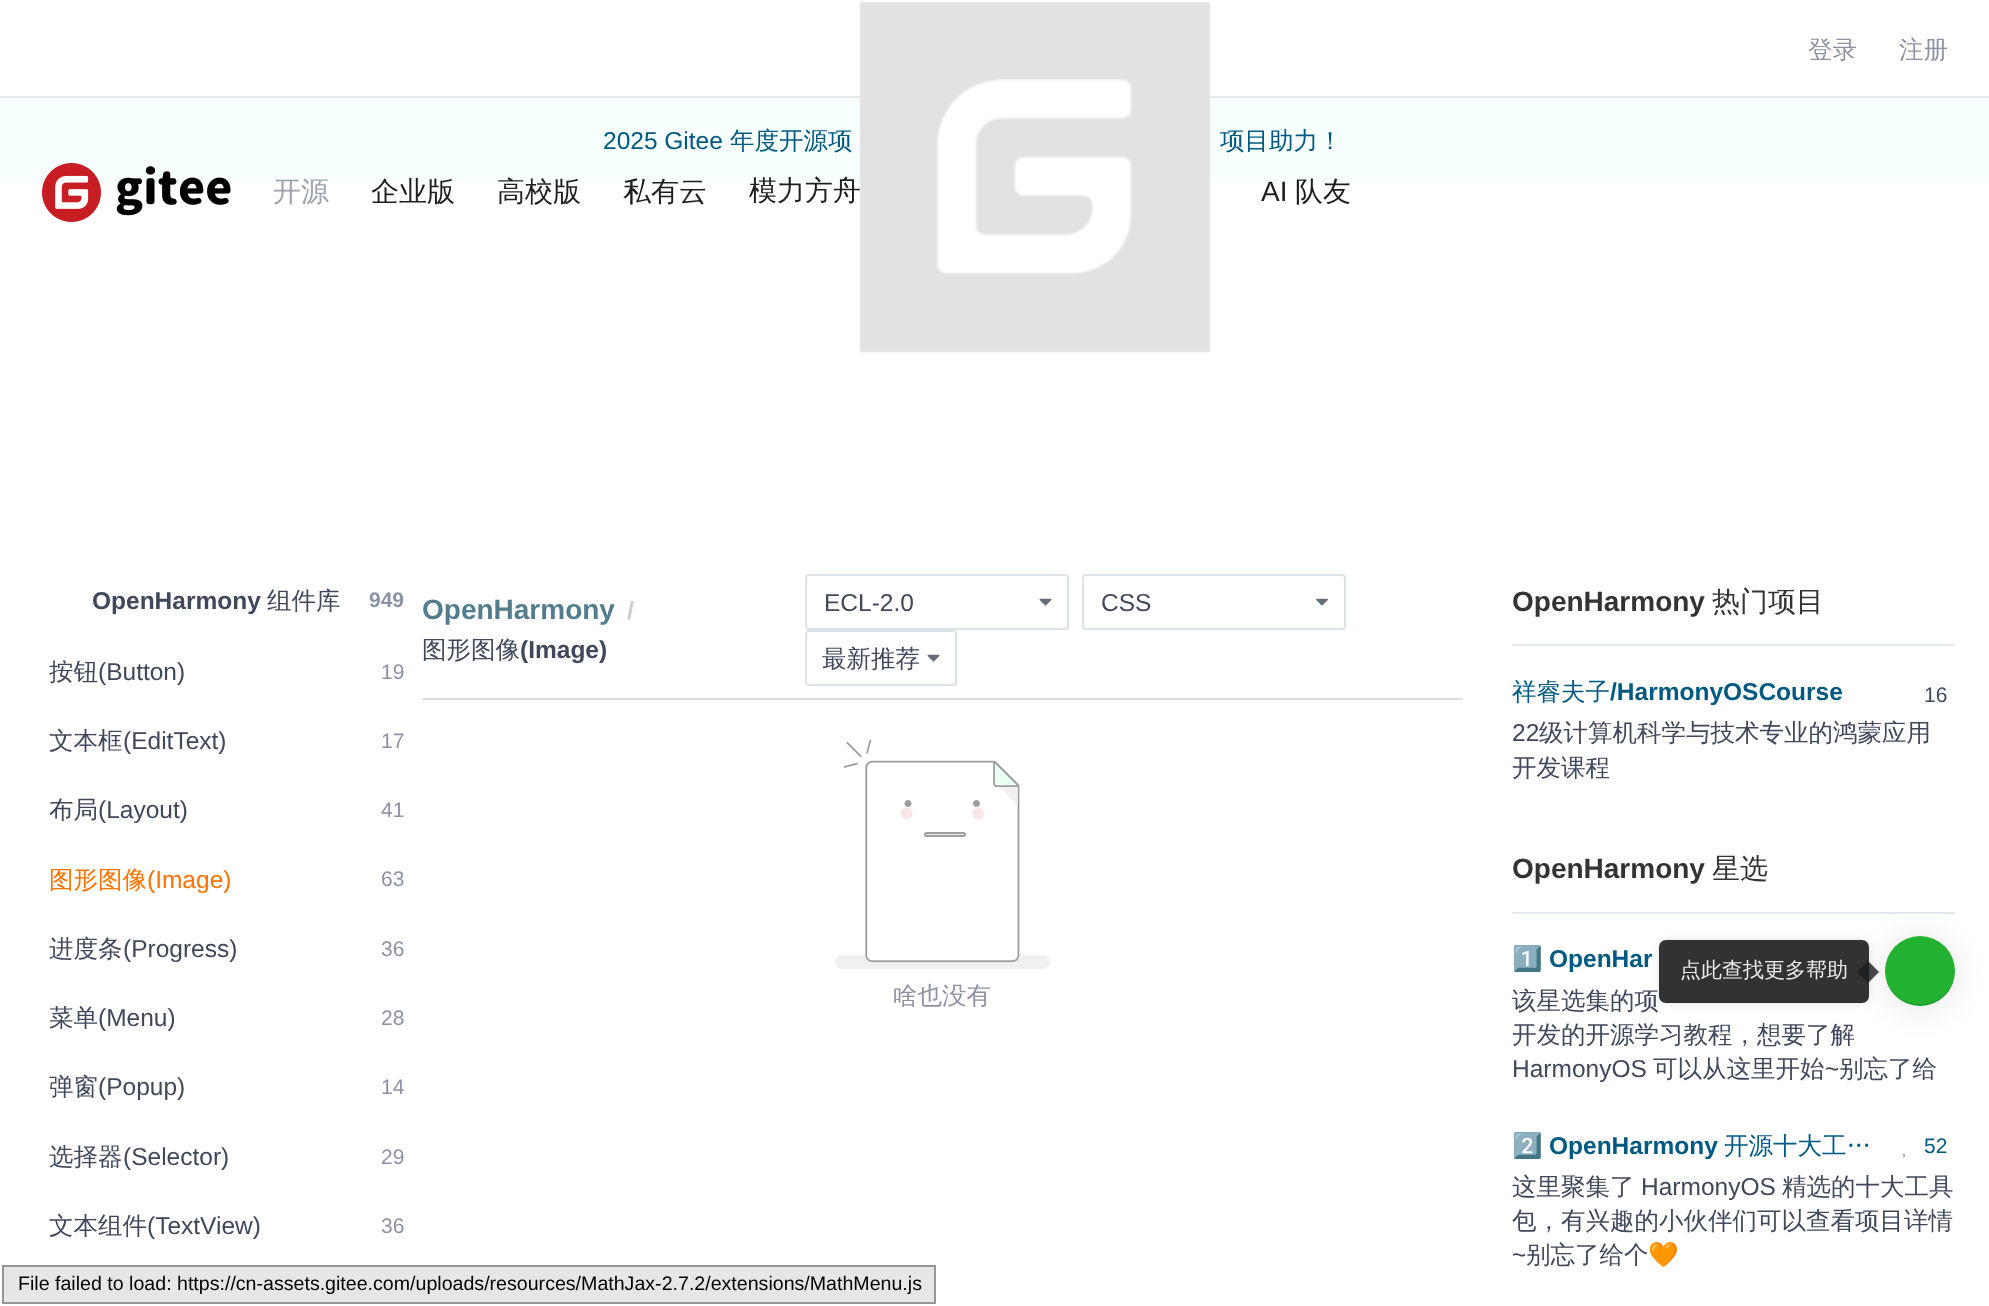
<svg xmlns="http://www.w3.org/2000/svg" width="1989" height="1306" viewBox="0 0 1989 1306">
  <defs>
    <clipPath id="clip1"><path d="M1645 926H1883V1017H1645ZM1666 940H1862C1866 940 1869 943 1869 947V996C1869 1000 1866 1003 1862 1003H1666C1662 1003 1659 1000 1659 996V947C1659 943 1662 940 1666 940Z" clip-rule="evenodd"/></clipPath>
    <clipPath id="clip2"><path d="M1512 943h310v34H1512z"/></clipPath>
    <clipPath id="clip3"><path d="M1512 1129h359v35H1512z"/></clipPath>
  </defs>
  <rect width="100%" height="100%" fill="#fff"/>
  <path d="M0 96h1989v2H0z" fill="#e3e9ed"/>
  <path d="M0 98h1989v84H0z" fill="#f8ffff"/>
  <image x="42" y="163" width="189" height="59" href="img/1.png"/>
  <rect x="806" y="575" width="262" height="54" rx="3" fill="none" stroke="#dce3e8" stroke-width="2"/>
  <image x="1039" y="598" width="13" height="8" href="img/3.png"/>
  <rect x="1083" y="575" width="262" height="54" rx="3" fill="none" stroke="#dce3e8" stroke-width="2"/>
  <image x="1316" y="598" width="12" height="8" href="img/4.png"/>
  <rect x="806" y="631" width="150" height="54" rx="3" fill="none" stroke="#dce3e8" stroke-width="2"/>
  <image x="927" y="654" width="13" height="8" href="img/3.png"/>
  <path d="M422 698h1041v2H422z" fill="#dedede"/>
  <image x="835" y="739" width="215" height="230" href="img/5.png"/>
  <path d="M1512 644h443v2H1512z" fill="#e3e9ed"/>
  <path d="M1512 912h443v2H1512z" fill="#e3e9ed"/>
  <image x="1902" y="1154" width="3" height="4" href="img/6.png"/>
  <g clip-path="url(#clip1)">
    <rect x="1661" y="942" width="206" height="59" rx="5" fill="#8c92a373" filter="blur(5px)"/>
  </g>
  <rect x="1885" y="938" width="70" height="70" rx="35" fill="#0000001a" filter="blur(17.5px)"/>
  <rect x="1659" y="940" width="210" height="63" rx="7" fill="#1b1c1de6"/>
  <path d="M1870.5 961L1869.5 962L1879 972L1869.5 982L1870.5 983L1881.5 972Z" fill="#b3b3b329"/>
  <path d="M1868 961L1879 972L1868 983L1857 972Z" fill="#1b1c1dcf"/>
  <circle cx="1920" cy="971" r="35" fill="#22b130"/>
  <path d="M1955 970C1955 989 1939 1004 1920 1004C1900 1004 1885 989 1885 971C1885 1005 1930 1019 1949 991C1953 985 1955 978 1955 970Z" fill="#0000001a"/>
  <path d="M3 1266h932v37H3z" fill="#e6e6e6" stroke="#959595" stroke-width="2"/>
  <g font-family="WenQuanYi Zen Hei" font-size="24.5" font-weight="500" fill="#8c92a4">
    <text x="1808" y="58">登录</text>
    <text x="1899" y="58">注册</text>
  </g>
  <text x="273" y="201" font-family="WenQuanYi Zen Hei" font-size="28" font-weight="500" fill="#9ca3af">开源</text>
  <g font-family="WenQuanYi Zen Hei" font-size="28" font-weight="500" fill="#1f1f1f">
    <text x="371" y="201">企业版</text>
    <text x="497" y="201">高校版</text>
    <text x="623" y="201">私有云</text>
    <text x="749" y="200">模力方舟</text>
  </g>
  <image x="859" y="1" width="352" height="352" href="img/2.png"/>
  <text x="1261" y="201" font-family="Liberation Sans" font-size="28" fill="#1f1f1f">AI</text>
  <text x="1295" y="201" font-family="WenQuanYi Zen Hei" font-size="28" font-weight="500" fill="#1f1f1f">队友</text>
  <text x="603" y="149" font-family="Liberation Sans" font-size="24.5" fill="#005980">2025 Gitee</text>
  <g font-family="WenQuanYi Zen Hei" font-size="24.5" font-weight="500" fill="#005980">
    <text x="730" y="149">年度开源项</text>
    <text x="1220" y="149">项目助力！</text>
  </g>
  <text x="92" y="609" font-family="Liberation Sans" font-size="24.5" font-weight="bold" fill="#40485b">OpenHarmony</text>
  <text x="267" y="609" font-family="WenQuanYi Zen Hei" font-size="24.5" font-weight="500" fill="#40485b">组件库</text>
  <text x="369" y="607" font-family="Liberation Sans" font-size="21" font-weight="bold" fill="#8c92a4">949</text>
  <text x="49" y="680" font-family="WenQuanYi Zen Hei" font-size="24.5" font-weight="500" fill="#40485b">按钮</text>
  <text x="98" y="680" font-family="Liberation Sans" font-size="24.5" fill="#40485b">(Button)</text>
  <text x="381" y="679" font-family="Liberation Sans" font-size="21" fill="#8c92a4">19</text>
  <text x="49" y="749" font-family="WenQuanYi Zen Hei" font-size="24.5" font-weight="500" fill="#40485b">文本框</text>
  <text x="123" y="749" font-family="Liberation Sans" font-size="24.5" fill="#40485b">(EditText)</text>
  <text x="381" y="748" font-family="Liberation Sans" font-size="21" fill="#8c92a4">17</text>
  <text x="49" y="818" font-family="WenQuanYi Zen Hei" font-size="24.5" font-weight="500" fill="#40485b">布局</text>
  <text x="98" y="818" font-family="Liberation Sans" font-size="24.5" fill="#40485b">(Layout)</text>
  <text x="381" y="817" font-family="Liberation Sans" font-size="21" fill="#8c92a4">41</text>
  <text x="49" y="888" font-family="WenQuanYi Zen Hei" font-size="24.5" font-weight="500" fill="#fe7300">图形图像</text>
  <text x="147" y="888" font-family="Liberation Sans" font-size="24.5" fill="#fe7300">(Image)</text>
  <text x="381" y="886" font-family="Liberation Sans" font-size="21" fill="#8c92a4">63</text>
  <text x="49" y="957" font-family="WenQuanYi Zen Hei" font-size="24.5" font-weight="500" fill="#40485b">进度条</text>
  <text x="123" y="957" font-family="Liberation Sans" font-size="24.5" fill="#40485b">(Progress)</text>
  <text x="381" y="956" font-family="Liberation Sans" font-size="21" fill="#8c92a4">36</text>
  <text x="49" y="1026" font-family="WenQuanYi Zen Hei" font-size="24.5" font-weight="500" fill="#40485b">菜单</text>
  <text x="98" y="1026" font-family="Liberation Sans" font-size="24.5" fill="#40485b">(Menu)</text>
  <text x="381" y="1025" font-family="Liberation Sans" font-size="21" fill="#8c92a4">28</text>
  <text x="49" y="1095" font-family="WenQuanYi Zen Hei" font-size="24.5" font-weight="500" fill="#40485b">弹窗</text>
  <text x="98" y="1095" font-family="Liberation Sans" font-size="24.5" fill="#40485b">(Popup)</text>
  <text x="381" y="1094" font-family="Liberation Sans" font-size="21" fill="#8c92a4">14</text>
  <text x="49" y="1165" font-family="WenQuanYi Zen Hei" font-size="24.5" font-weight="500" fill="#40485b">选择器</text>
  <text x="123" y="1165" font-family="Liberation Sans" font-size="24.5" fill="#40485b">(Selector)</text>
  <text x="381" y="1164" font-family="Liberation Sans" font-size="21" fill="#8c92a4">29</text>
  <text x="49" y="1234" font-family="WenQuanYi Zen Hei" font-size="24.5" font-weight="500" fill="#40485b">文本组件</text>
  <text x="147" y="1234" font-family="Liberation Sans" font-size="24.5" fill="#40485b">(TextView)</text>
  <text x="381" y="1233" font-family="Liberation Sans" font-size="21" fill="#8c92a4">36</text>
  <text x="422" y="619" font-family="Liberation Sans" font-size="28" font-weight="bold" fill="#537c8d">OpenHarmony</text>
  <text x="627" y="619" font-family="Liberation Sans" font-size="25" font-weight="bold" fill="#ccc">/</text>
  <text x="422" y="658" font-family="WenQuanYi Zen Hei" font-size="24.5" font-weight="500" fill="#40485b">图形图像</text>
  <text x="520" y="658" font-family="Liberation Sans" font-size="24.5" font-weight="bold" fill="#40485b">(Image)</text>
  <g font-family="Liberation Sans" font-size="24.5" fill="#40485b">
    <text x="824" y="611">ECL-2.0</text>
    <text x="1101" y="611">CSS</text>
  </g>
  <text x="822" y="667" font-family="WenQuanYi Zen Hei" font-size="24.5" font-weight="500" fill="#40485b">最新推荐</text>
  <text x="893" y="1004" font-family="WenQuanYi Zen Hei" font-size="24.5" font-weight="500" fill="#8c92a4">啥也没有</text>
  <text x="1512" y="611" font-family="Liberation Sans" font-size="28" font-weight="bold" fill="#333">OpenHarmony</text>
  <text x="1712" y="611" font-family="WenQuanYi Zen Hei" font-size="28" font-weight="500" fill="#333">热门项目</text>
  <text x="1512" y="700" font-family="WenQuanYi Zen Hei" font-size="24.5" font-weight="500" fill="#005980">祥睿夫子</text>
  <text x="1610" y="700" font-family="Liberation Sans" font-size="24.5" font-weight="bold" fill="#005980">/HarmonyOSCourse</text>
  <text x="1924" y="702" font-family="Liberation Sans" font-size="21" fill="#40485b">16</text>
  <text x="1512" y="741" font-family="Liberation Sans" font-size="24.5" fill="#40485b">22</text>
  <g font-family="WenQuanYi Zen Hei" font-size="24.5" font-weight="500" fill="#40485b">
    <text x="1539" y="741">级计算机科学与技术专业的鸿蒙应用</text>
    <text x="1512" y="776">开发课程</text>
  </g>
  <text x="1512" y="878" font-family="Liberation Sans" font-size="28" font-weight="bold" fill="#333">OpenHarmony</text>
  <text x="1712" y="878" font-family="WenQuanYi Zen Hei" font-size="28" font-weight="500" fill="#333">星选</text>
  <g clip-path="url(#clip2)">
    <text x="1512" y="967" font-family="Noto Color Emoji" font-size="24.5" font-weight="bold" fill="#005980">1️⃣</text>
  </g>
  <text x="1549" y="967" font-family="Liberation Sans" font-size="24.5" font-weight="bold" fill="#005980">OpenHar</text>
  <g font-family="WenQuanYi Zen Hei" font-size="24.5" font-weight="500" fill="#40485b">
    <text x="1512" y="1009">该星选集的项</text>
    <text x="1512" y="1043">开发的开源学习教程，想要了解</text>
  </g>
  <text x="1512" y="1077" font-family="Liberation Sans" font-size="24.5" fill="#40485b">HarmonyOS</text>
  <text x="1653" y="1077" font-family="WenQuanYi Zen Hei" font-size="24.5" font-weight="500" fill="#40485b">可以从这里开始</text>
  <text x="1825" y="1077" font-family="Liberation Sans" font-size="24.5" fill="#40485b">~</text>
  <text x="1839" y="1077" font-family="WenQuanYi Zen Hei" font-size="24.5" font-weight="500" fill="#40485b">别忘了给</text>
  <g clip-path="url(#clip3)">
    <text x="1512" y="1154" font-family="Noto Color Emoji" font-size="24.5" font-weight="bold" fill="#005980">2️⃣</text>
  </g>
  <text x="1549" y="1154" font-family="Liberation Sans" font-size="24.5" font-weight="bold" fill="#005980">OpenHarmony</text>
  <text x="1724" y="1154" font-family="WenQuanYi Zen Hei" font-size="24.5" font-weight="500" fill="#005980">开源十大工…</text>
  <text x="1924" y="1153" font-family="Liberation Sans" font-size="21" fill="#005980">52</text>
  <text x="1512" y="1195" font-family="WenQuanYi Zen Hei" font-size="24.5" font-weight="500" fill="#40485b">这里聚集了</text>
  <text x="1641" y="1195" font-family="Liberation Sans" font-size="24.5" fill="#40485b">HarmonyOS</text>
  <g font-family="WenQuanYi Zen Hei" font-size="24.5" font-weight="500" fill="#40485b">
    <text x="1782" y="1195">精选的十大工具</text>
    <text x="1512" y="1229">包，有兴趣的小伙伴们可以查看项目详情</text>
  </g>
  <text x="1512" y="1263" font-family="Liberation Sans" font-size="24.5" fill="#40485b">~</text>
  <text x="1526" y="1263" font-family="WenQuanYi Zen Hei" font-size="24.5" font-weight="500" fill="#40485b">别忘了给个</text>
  <text x="1648" y="1263" font-family="Noto Color Emoji" font-size="24.5" fill="#40485b">🧡</text>
  <text x="1680" y="977" font-family="WenQuanYi Zen Hei" font-size="21" font-weight="500" fill="#eaeaeb">点此查找更多帮助</text>
  <text x="18" y="1290" font-family="Liberation Sans" font-size="19.6" fill="#000">File failed to load: https://cn-assets.gitee.com/uploads/resources/MathJax-2.7.2/extensions/MathMenu.js</text>
</svg>
